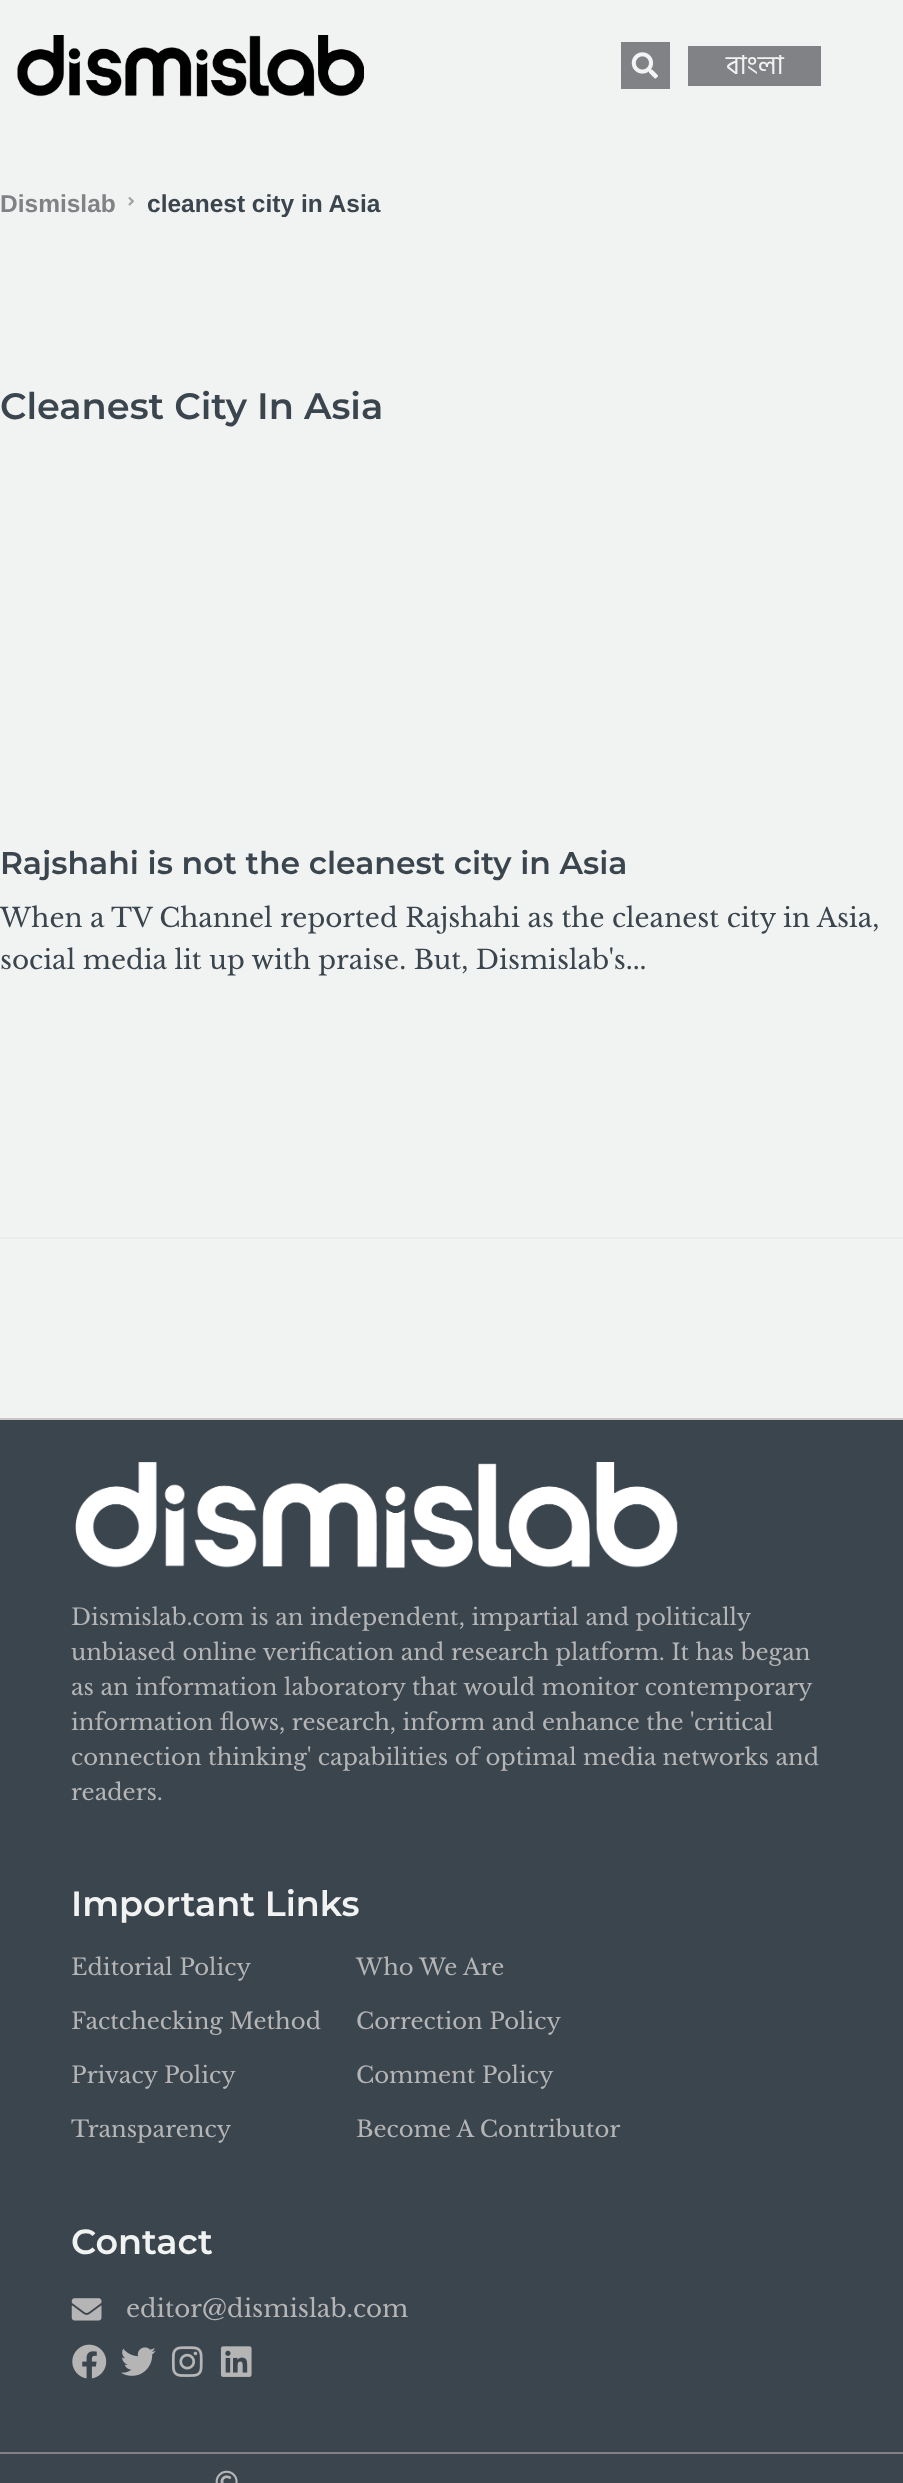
<svg xmlns="http://www.w3.org/2000/svg" width="903" height="2483" viewBox="0 0 903 2483">
  <rect width="100%" height="100%" fill="#f1f2f2"/>
  <image x="17" y="35" width="347" height="62" href="img/1.png"/>
  <path d="M621 42h49v47H621z" fill="#808285"/>
  <image x="631" y="52" width="27" height="27" href="img/2.png"/>
  <path d="M688 46h133v40H688z" fill="#808285"/>
  <image x="128" y="197" width="6" height="9" href="img/3.png"/>
  <path d="M0 1237h903v2H0z" fill="#ebeced"/>
  <path d="M0 1420h903v1032H0z" fill="#3b454e"/>
  <path d="M0 1418h903v2H0z" fill="#c8c5c5"/>
  <image x="75" y="1462" width="603" height="107" href="img/4.png"/>
  <image x="71" y="2298" width="31" height="23" href="img/5.png"/>
  <image x="72" y="2344" width="35" height="35" href="img/6.png"/>
  <image x="121" y="2347" width="35" height="29" href="img/7.png"/>
  <image x="171" y="2346" width="32" height="31" href="img/8.png"/>
  <image x="220" y="2346" width="32" height="31" href="img/9.png"/>
  <path d="M0 2454h903v29H0z" fill="#3b454e"/>
  <path d="M0 2452h903v2H0z" fill="#808285"/>
  <image x="215" y="2470" width="23" height="13" href="img/10.png"/>
  <text x="726" y="74" font-family="Hind Siliguri" font-size="26.25" fill="#f1f2f2">বাংলা</text>
  <text x="0" y="212" font-family="Liberation Sans" font-size="24.5" font-weight="bold" fill="#808285">Dismislab</text>
  <text x="147" y="212" font-family="Liberation Sans" font-size="24.5" font-weight="bold" fill="#3b454e">cleanest city in Asia</text>
  <text x="0" y="419" font-family="Montserrat" font-size="36.75" font-weight="600" fill="#3b454e">Cleanest City In Asia</text>
  <text x="0" y="874" font-family="Montserrat" font-size="31.5" font-weight="600" fill="#3b454e">Rajshahi is not the cleanest city in Asia</text>
  <g font-family="Libre Baskerville" font-size="26.25" fill="#3b454e">
    <text x="0" y="927">When ‍a TV Channel reported Rajshahi as the cleanest city in Asia,</text>
    <text x="0" y="969">social media lit up with praise. But, Dismislab's...</text>
  </g>
  <g font-family="Libre Baskerville" font-size="22.75" fill="#b5b5b6">
    <text x="71" y="1625">Dismislab.com is an independent, impartial and politically</text>
    <text x="71" y="1660">unbiased online verification and research platform. It has began</text>
    <text x="71" y="1695">as an information laboratory that would monitor contemporary</text>
    <text x="71" y="1730">information flows, research, inform and enhance the 'critical</text>
    <text x="71" y="1765">connection thinking' capabilities of optimal media networks and</text>
    <text x="71" y="1800">readers.</text>
  </g>
  <text x="71" y="1916" font-family="Montserrat" font-size="35" font-weight="600" fill="#f1f2f2">Important Links</text>
  <g font-family="Libre Baskerville" font-size="22.75" fill="#b5b5b6">
    <text x="71" y="1975">Editorial Policy</text>
    <text x="71" y="2029">Factchecking Method</text>
    <text x="71" y="2083">Privacy Policy</text>
    <text x="71" y="2137">Transparency</text>
    <text x="356" y="1975">Who We Are</text>
    <text x="356" y="2029">Correction Policy</text>
    <text x="356" y="2083">Comment Policy</text>
    <text x="356" y="2137">Become A Contributor</text>
  </g>
  <text x="71" y="2254" font-family="Montserrat" font-size="35" font-weight="600" fill="#f1f2f2">Contact</text>
  <text x="126" y="2317" font-family="Libre Baskerville" font-size="24.5" fill="#b5b5b6">editor@dismislab.com</text>
</svg>
